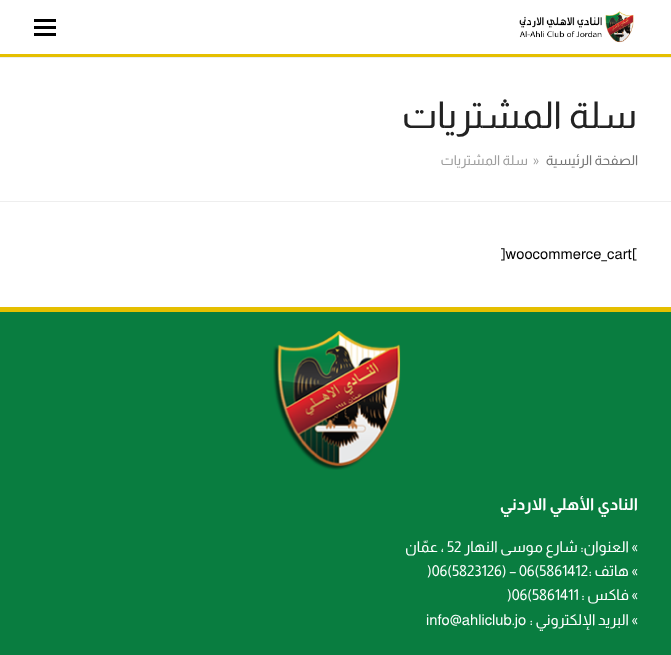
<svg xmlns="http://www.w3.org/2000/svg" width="671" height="655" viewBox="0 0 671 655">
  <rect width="100%" height="100%" fill="#fff"/>
  <path d="M0 54h671v3H0z" fill="#e5bf00"/>
  <image x="519" y="11" width="115" height="32" href="img/1.png"/>
  <path d="M34 26h22v3H34z" fill="#000"/>
  <path d="M34 19h22v3H34z" fill="#000"/>
  <path d="M34 33h22v3H34z" fill="#000"/>
  <path d="M0 57h671v1H0z" fill="#eee"/>
  <path d="M0 201h671v1H0z" fill="#eee"/>
  <path d="M0 312h671v343H0z" fill="#097d40"/>
  <path d="M0 307h671v5H0z" fill="#e5bf00"/>
  <image x="273" y="331" width="128" height="139" href="img/2.png"/>
  <text x="637" y="128" font-family="Almarai" font-size="37" direction="rtl" fill="#222">سلة المشتريات</text>
  <text x="638" y="165" font-family="Almarai" font-size="13.75" direction="rtl" fill="#757575">الصفحة الرئيسية</text>
  <text x="533" y="165" font-family="Almarai" font-size="13.75" fill="#9e9e9e">»</text>
  <text x="528" y="165" font-family="Almarai" font-size="13.75" direction="rtl" fill="#9e9e9e">سلة المشتريات</text>
  <text x="500" y="259" font-family="Almarai" font-size="15" fill="#000">]woocommerce_cart[</text>
  <text x="638" y="510" font-family="Almarai" font-size="16.25" font-weight="bold" direction="rtl" fill="#fff">النادي الأهلي الاردني</text>
  <text x="638" y="552" font-family="Almarai" font-size="15" direction="rtl" fill="#fff">» العنوان: شارع موسى النهار</text>
  <text x="447" y="552" font-family="Almarai" font-size="15" fill="#fff">52</text>
  <g font-family="Almarai" font-size="15" direction="rtl" fill="#fff">
    <text x="444" y="552">، عمّان</text>
    <text x="638" y="576">» هاتف :</text>
  </g>
  <text x="427" y="576" font-family="Almarai" font-size="15" fill="#fff">)06(5823126) – 06(5861412</text>
  <text x="638" y="600" font-family="Almarai" font-size="15" direction="rtl" fill="#fff">» فاكس :</text>
  <text x="507" y="600" font-family="Almarai" font-size="15" fill="#fff">)06(5861411</text>
  <text x="638" y="625" font-family="Almarai" font-size="15" direction="rtl" fill="#fff">» البريد الإلكتروني :</text>
  <text x="426" y="625" font-family="Almarai" font-size="15" fill="#fff">info@ahliclub.jo</text>
</svg>
